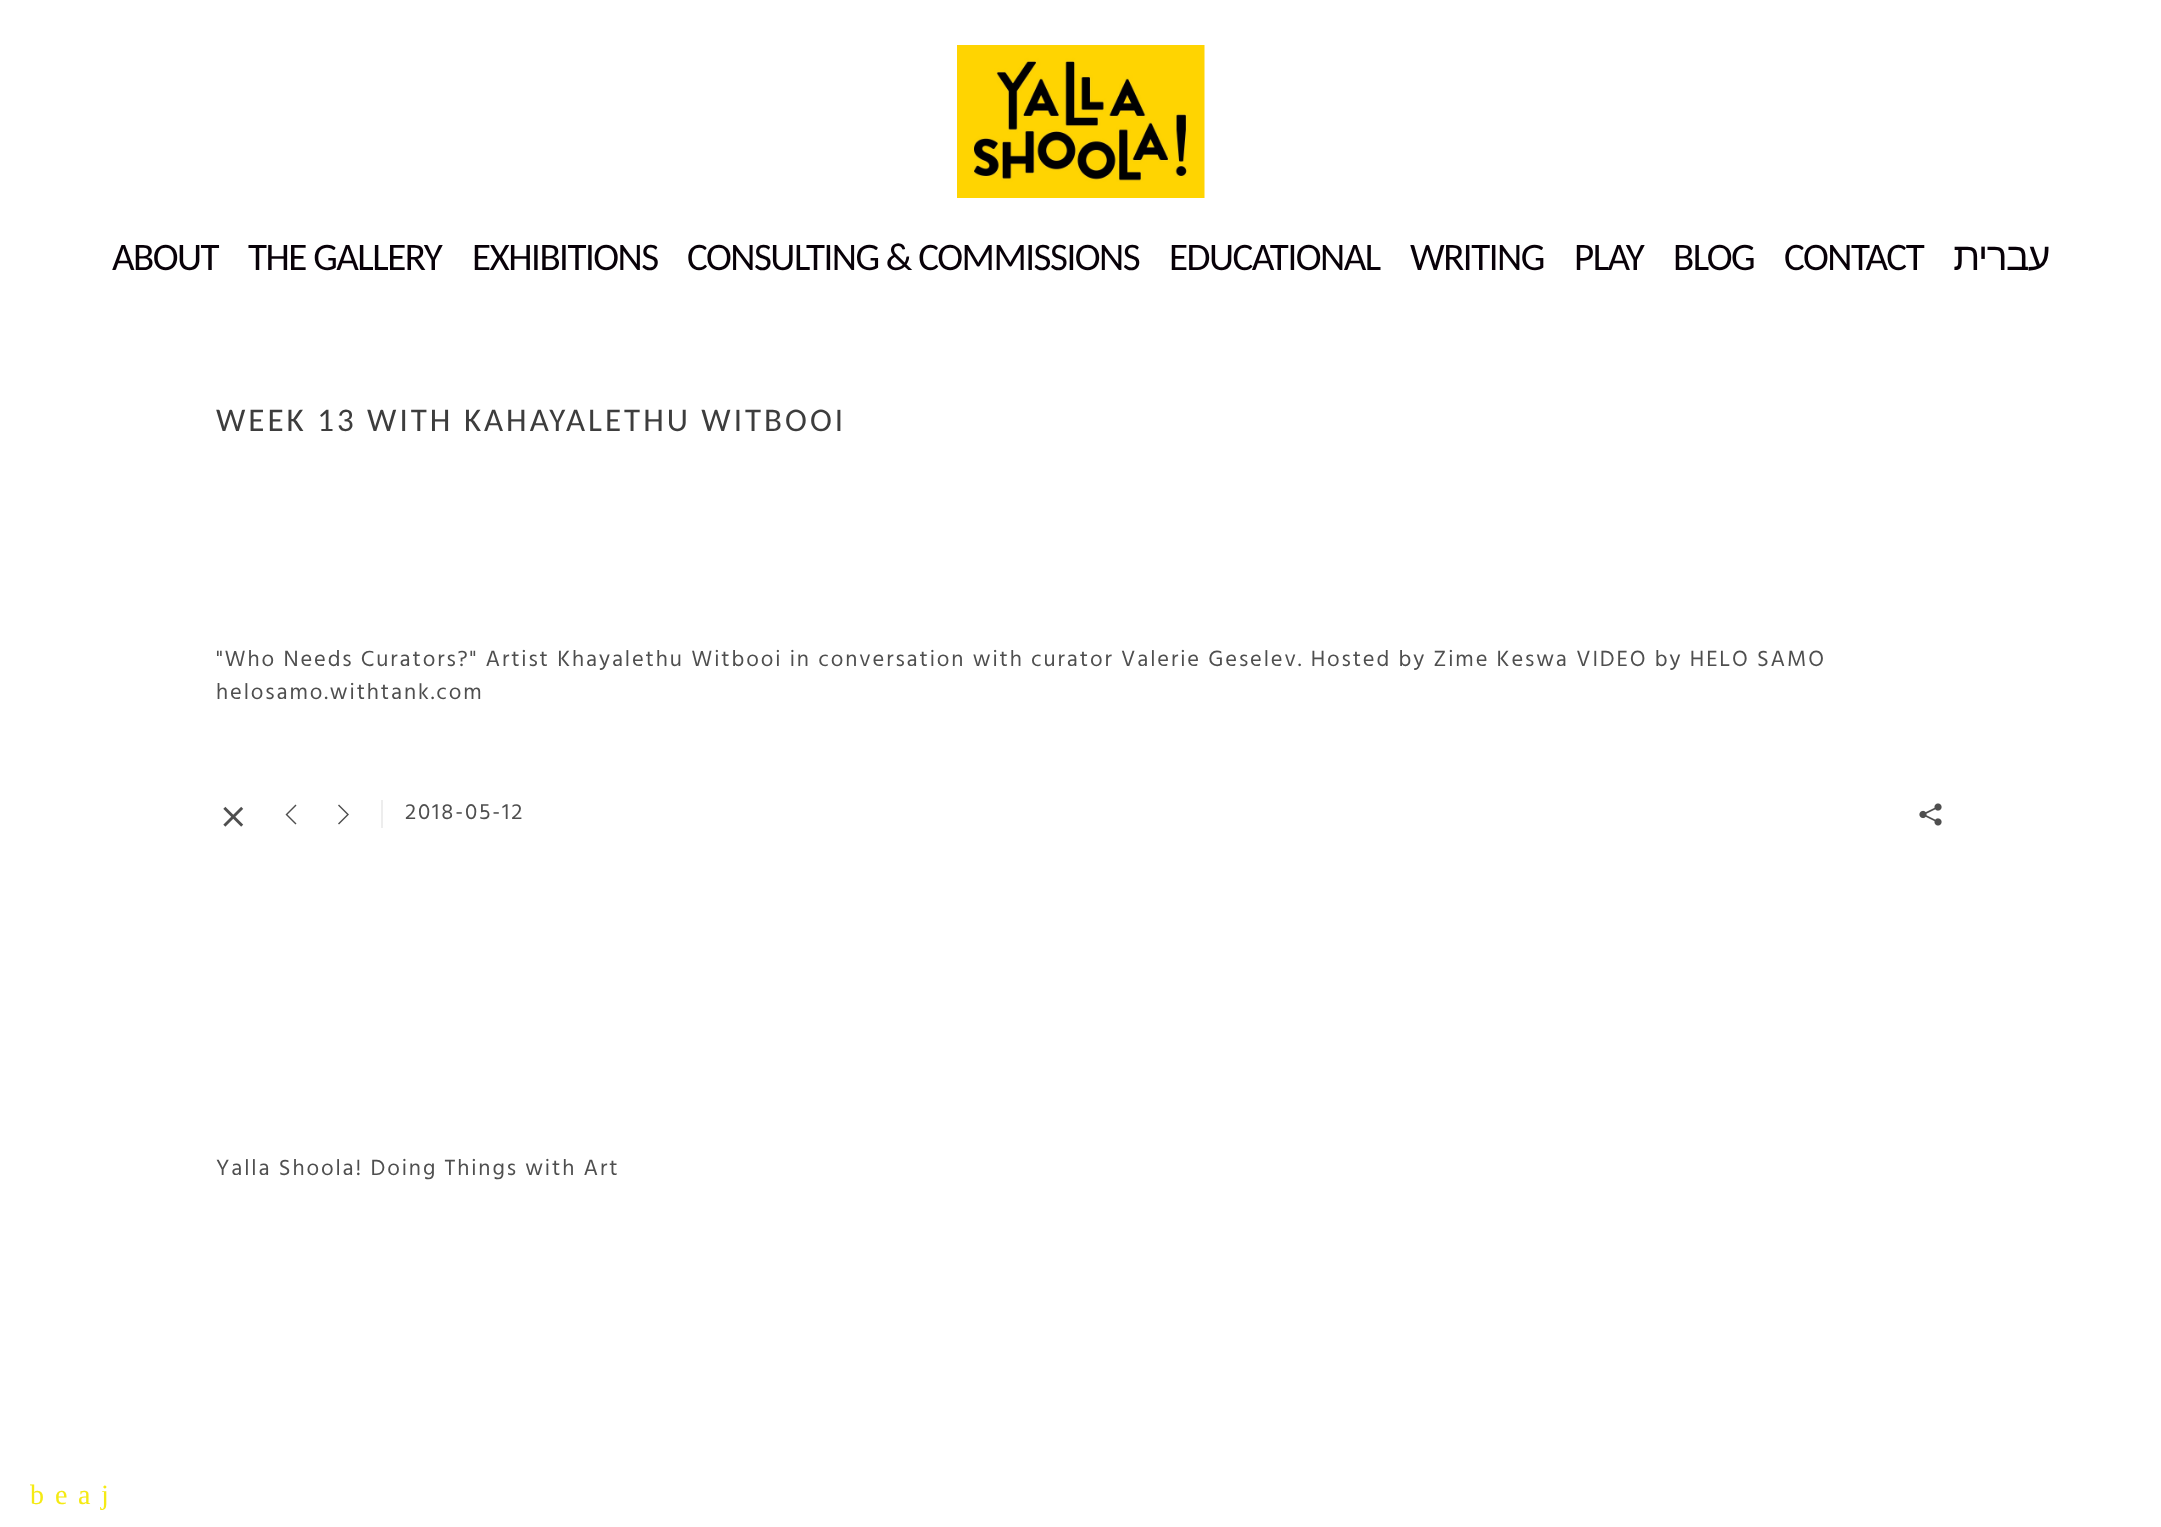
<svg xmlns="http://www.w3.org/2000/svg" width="2161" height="1527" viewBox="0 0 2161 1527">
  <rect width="100%" height="100%" fill="#fff"/>
  <image x="957" y="45" width="248" height="153" href="img/1.png"/>
  <image x="223" y="806" width="21" height="21" href="img/2.png"/>
  <path d="M295.5 824.5L296.5 823.5L287.5 814.5L296.5 805.5L295.5 804.5L285.5 814.5Z" fill="#4f4f4f"/>
  <path d="M349 814.5L339 804.5L338 805.5L347 814.5L338 823.5L339 824.5Z" fill="#4f4f4f"/>
  <path d="M381 800h2v28H381z" fill="#ededed"/>
  <image x="1919" y="803" width="23" height="23" href="img/3.png"/>
  <g font-family="Carlito" font-size="39" letter-spacing="-1.5" fill="#080108">
    <text x="112" y="270">ABOUT</text>
    <text x="248" y="270">THE GALLERY</text>
    <text x="472" y="270">EXHIBITIONS</text>
    <text x="687" y="270">CONSULTING &amp; COMMISSIONS</text>
    <text x="1169" y="270">EDUCATIONAL</text>
    <text x="1410" y="270">WRITING</text>
    <text x="1574" y="270">PLAY</text>
    <text x="1673" y="270">BLOG</text>
    <text x="1784" y="270">CONTACT</text>
  </g>
  <text x="2049" y="270" font-family="Liberation Sans" font-size="39" letter-spacing="-1.5" direction="rtl" fill="#080108">עברית</text>
  <text x="216" y="431" font-family="Carlito" font-size="33" letter-spacing="3" fill="#3d3d3d">WEEK 13 WITH KAHAYALETHU WITBOOI</text>
  <g font-family="Hind" font-size="22.5" letter-spacing="1.88" fill="#4f4f4f">
    <text x="216" y="666">"Who Needs Curators?" Artist Khayalethu Witbooi in conversation with curator Valerie Geselev. Hosted by Zime Keswa VIDEO by HELO SAMO</text>
    <text x="216" y="699">helosamo.withtank.com</text>
    <text x="405" y="819">2018-05-12</text>
    <text x="216" y="1175">Yalla Shoola! Doing Things with Art</text>
  </g>
  <g font-family="Liberation Serif" font-size="28" fill="#f5ea13">
    <text x="30" y="1504">b</text>
    <text x="55" y="1504">e</text>
    <text x="78" y="1504">a</text>
    <text x="101" y="1504">j</text>
  </g>
</svg>
